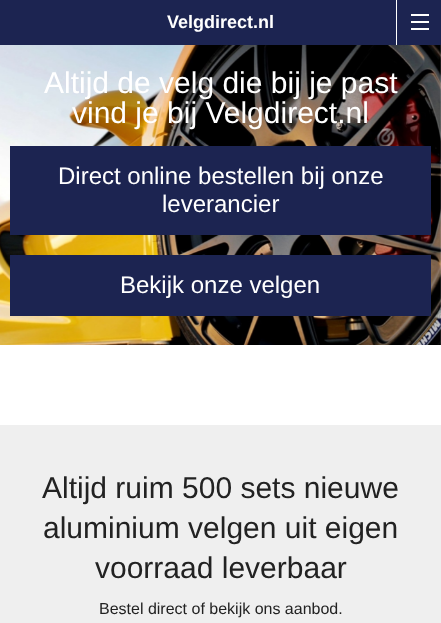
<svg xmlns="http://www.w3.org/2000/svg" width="441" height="623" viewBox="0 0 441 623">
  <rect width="100%" height="100%" fill="#fff"/>
  <path d="M0 0h441v45H0z" fill="#1c2451"/>
  <path d="M396 0h1v45H396z" fill="#fff"/>
  <path d="M411 28h18v2H411z" fill="#fff"/>
  <path d="M411 21h18v2H411z" fill="#fff"/>
  <path d="M411 14h18v2H411z" fill="#fff"/>
  <image x="0" y="45" width="441" height="300" href="img/1.png"/>
  <path d="M10 146h421v89H10z" fill="#1c2451"/>
  <path d="M10 255h421v61H10z" fill="#1c2451"/>
  <path d="M0 425h441v198H0z" fill="#efefef"/>
  <text x="167" y="28" font-family="Liberation Sans" font-size="18" font-weight="bold" fill="#fff">Velgdirect.nl</text>
  <g font-family="Liberation Sans" font-size="30" fill="#fff">
    <text x="44" y="93">Altijd de velg die bij je past</text>
    <text x="72" y="123">vind je bij Velgdirect.nl</text>
  </g>
  <g font-family="Liberation Sans" font-size="24" fill="#fff">
    <text x="58" y="184">Direct online bestellen bij onze</text>
    <text x="162" y="212">leverancier</text>
    <text x="120" y="293">Bekijk onze velgen</text>
  </g>
  <g font-family="Liberation Sans" font-size="30" fill="#222">
    <text x="42" y="498">Altijd ruim 500 sets nieuwe</text>
    <text x="43" y="538">aluminium velgen uit eigen</text>
    <text x="95" y="578">voorraad leverbaar</text>
  </g>
  <text x="99" y="614" font-family="Liberation Sans" font-size="16" fill="#222">Bestel direct of bekijk ons aanbod.</text>
</svg>
